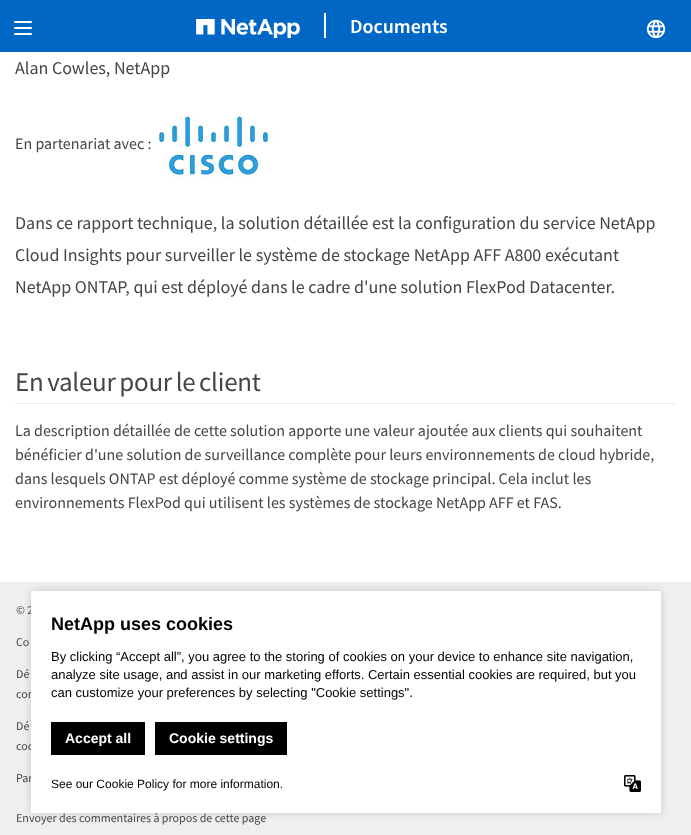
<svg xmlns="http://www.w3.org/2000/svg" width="691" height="835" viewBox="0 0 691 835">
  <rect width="100%" height="100%" fill="#fff"/>
  <path d="M0 0h691v52H0z" fill="#0067c5"/>
  <image x="14" y="21" width="18" height="14" href="img/1.png"/>
  <image x="196" y="19" width="104" height="19" href="img/2.png"/>
  <path d="M324 13h2v25H324z" fill="#fff"/>
  <image x="646" y="19" width="20" height="20" href="img/3.png"/>
  <image x="159" y="112" width="115" height="67" href="img/4.png"/>
  <path d="M15 403h661v1H15z" fill="#eaecef"/>
  <path d="M0 582h691v253H0z" fill="#efefef"/>
  <path d="M31 591h630v222H31z" fill="#00000026" filter="blur(4px)"/>
  <text x="350" y="33" font-family="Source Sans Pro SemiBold" font-size="20" font-weight="600" fill="#fff">Documents</text>
  <text x="15" y="74" font-family="Source Sans Pro" font-size="18" fill="#454545">Alan Cowles, NetApp</text>
  <text x="15" y="149" font-family="Source Sans Pro" font-size="16" fill="#454545">En partenariat avec :</text>
  <g font-family="Source Sans Pro" font-size="18" fill="#454545">
    <text x="15" y="229">Dans ce rapport technique, la solution détaillée est la configuration du service NetApp</text>
    <text x="15" y="261">Cloud Insights pour surveiller le système de stockage NetApp AFF A800 exécutant</text>
    <text x="15" y="293">NetApp ONTAP, qui est déployé dans le cadre d'une solution FlexPod Datacenter.</text>
  </g>
  <text x="15" y="391" word-spacing="-1.5" font-family="Source Sans Pro" font-size="27" letter-spacing="-0.25" fill="#454545">En valeur pour le client</text>
  <g font-family="Source Sans Pro" font-size="16" fill="#454545">
    <text x="15" y="436">La description détaillée de cette solution apporte une valeur ajoutée aux clients qui souhaitent</text>
    <text x="15" y="460">bénéficier d'une solution de surveillance complète pour leurs environnements de cloud hybride,</text>
    <text x="15" y="484">dans lesquels ONTAP est déployé comme système de stockage principal. Cela inclut les</text>
    <text x="15" y="508">environnements FlexPod qui utilisent les systèmes de stockage NetApp AFF et FAS.</text>
  </g>
  <g font-family="Source Sans Pro" font-size="12" fill="#454545">
    <text x="16" y="614">© 2</text>
    <text x="16" y="646">Co</text>
    <text x="16" y="678">Dé</text>
    <text x="16" y="698">con</text>
    <text x="16" y="730">Dé</text>
    <text x="16" y="750">coo</text>
    <text x="16" y="782">Par</text>
    <text x="16" y="822">Envoyer des commentaires à propos de cette page</text>
  </g>
  <path d="M31 591h630v222H31z" fill="#fff"/>
  <text x="51" y="630" font-family="Liberation Sans" font-size="18" font-weight="bold" fill="#000">NetApp uses cookies</text>
  <g font-family="Liberation Sans" font-size="13" fill="#000">
    <text x="51" y="661">By clicking “Accept all”, you agree to the storing of cookies on your device to enhance site navigation,</text>
    <text x="51" y="679">analyze site usage, and assist in our marketing efforts. Certain essential cookies are required, but you</text>
    <text x="51" y="697">can customize your preferences by selecting "Cookie settings".</text>
  </g>
  <path d="M51 722h94v33H51z" fill="#000"/>
  <text x="65" y="743" font-family="Liberation Sans" font-size="14" font-weight="bold" fill="#fff">Accept all</text>
  <path d="M155 722h132v33H155z" fill="#000"/>
  <text x="169" y="743" font-family="Liberation Sans" font-size="14" font-weight="bold" fill="#fff">Cookie settings</text>
  <text x="51" y="788" font-family="Liberation Sans" font-size="12" fill="#000">See our Cookie Policy for more information.</text>
  <image x="624" y="775" width="17" height="17" href="img/5.png"/>
</svg>
